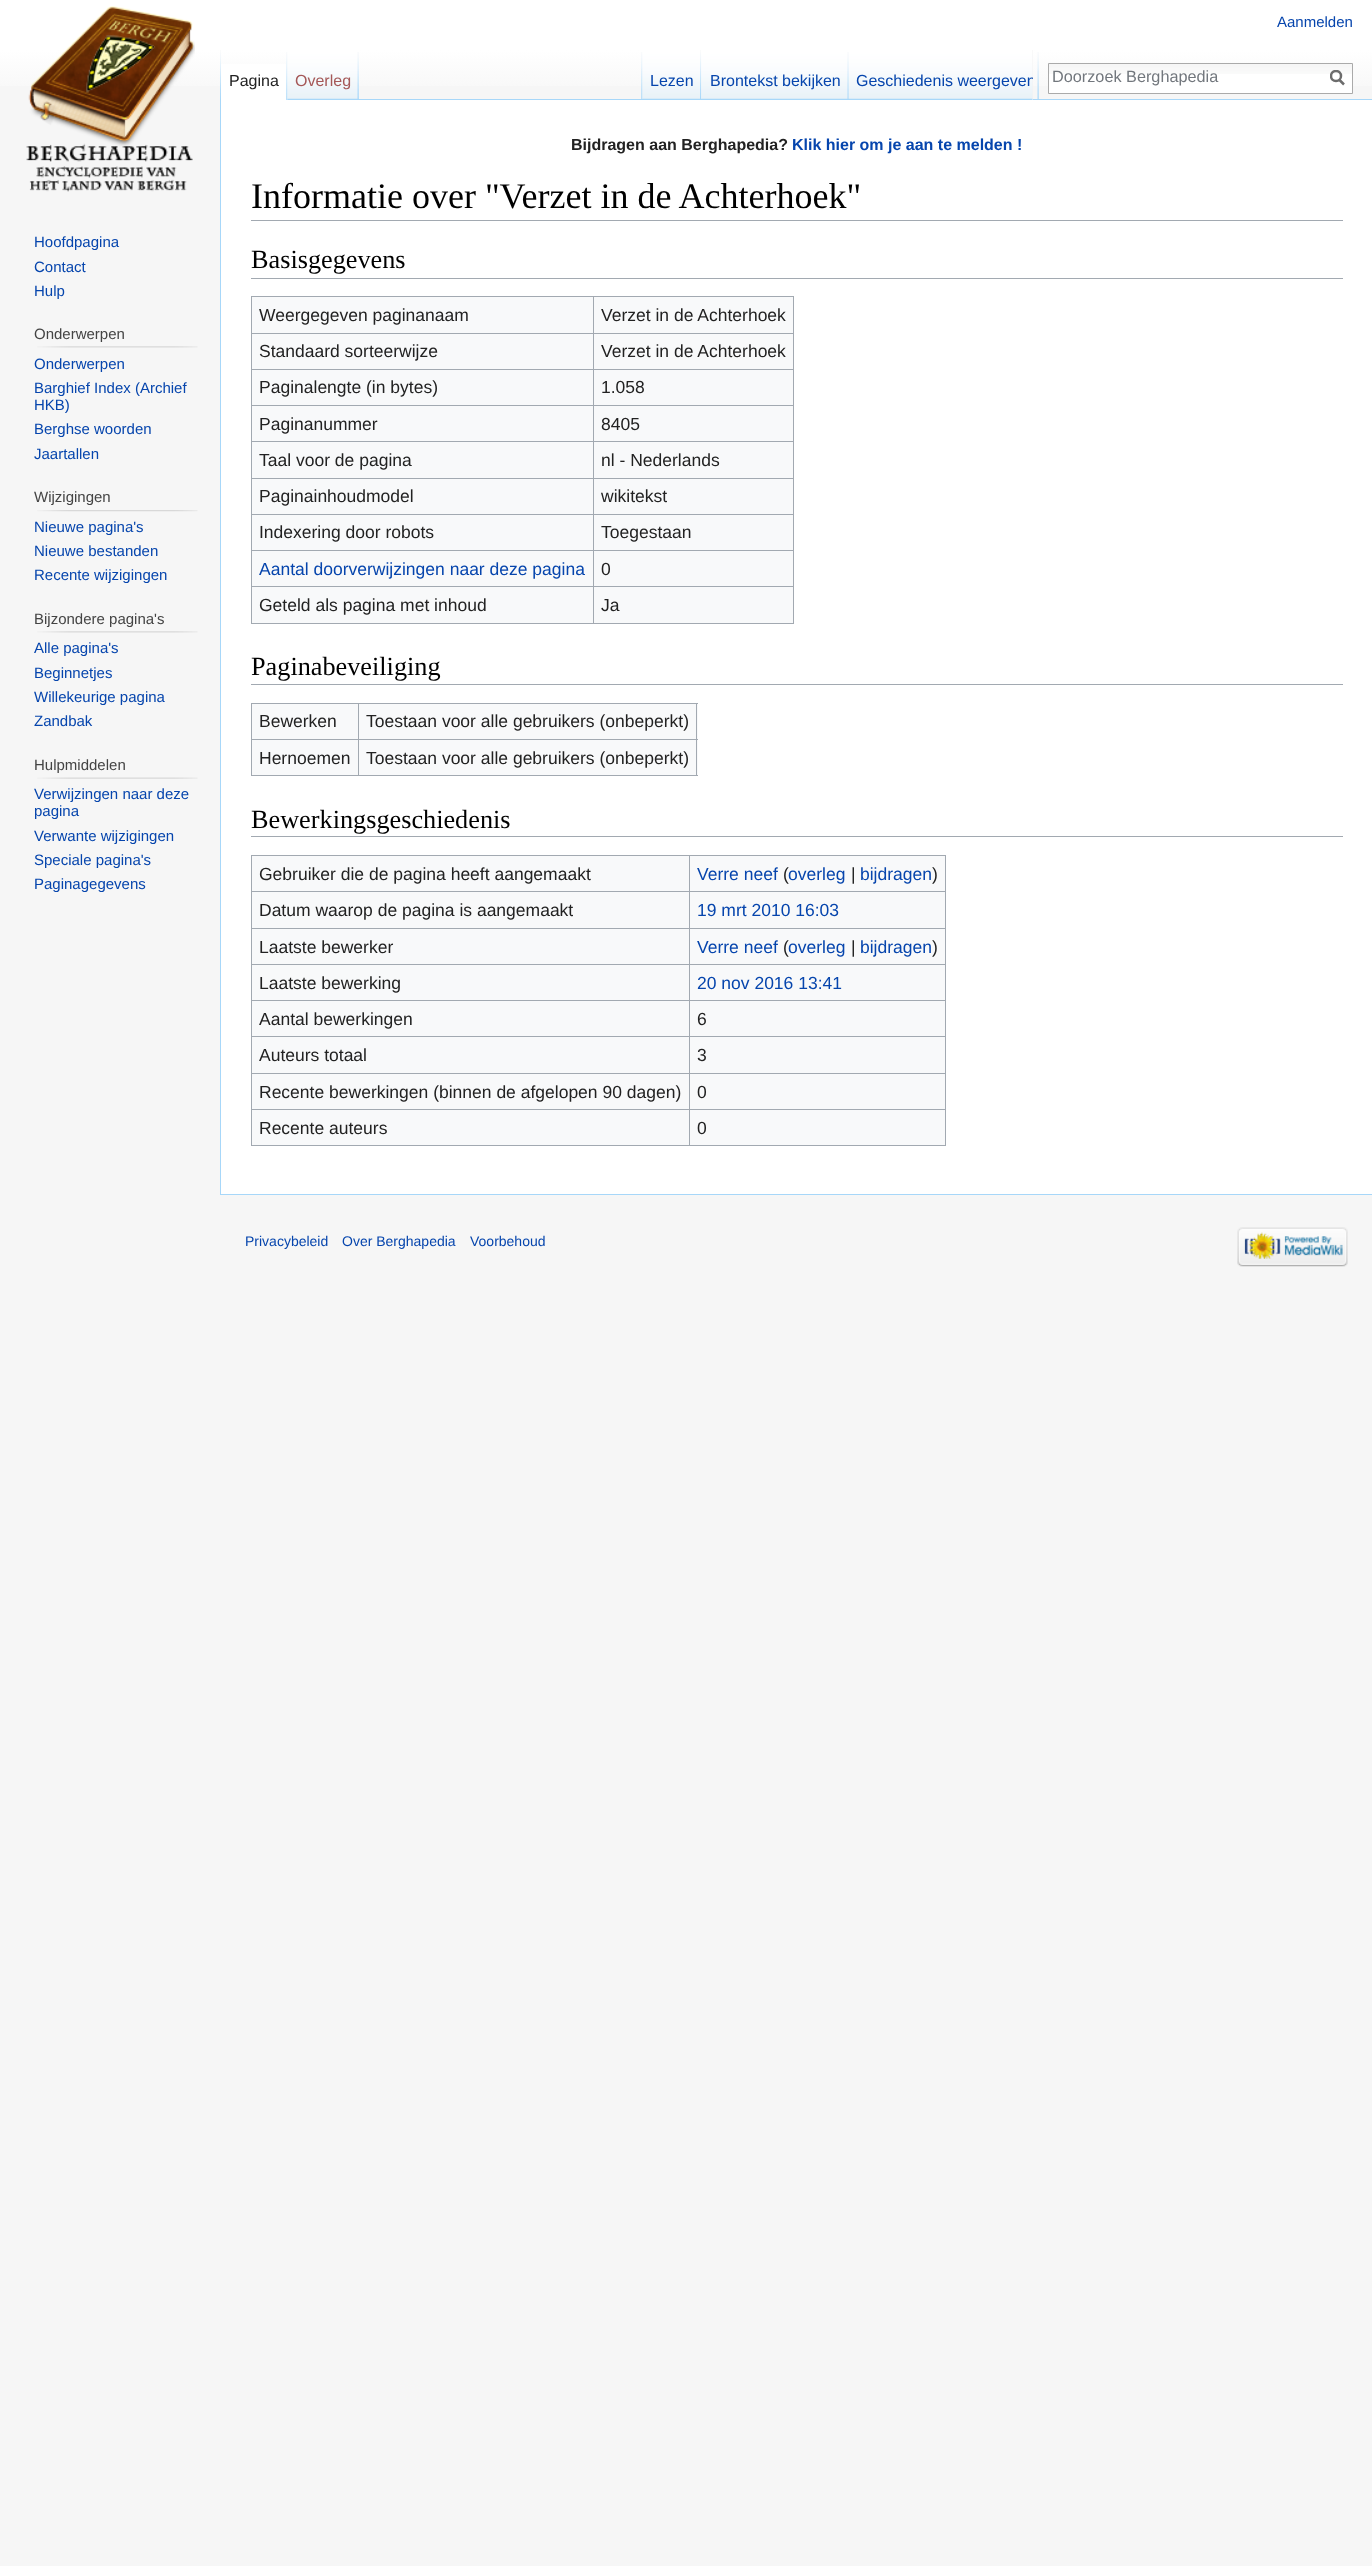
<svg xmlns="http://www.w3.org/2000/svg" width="1372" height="2566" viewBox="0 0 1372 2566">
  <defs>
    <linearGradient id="g1" gradientUnits="userSpaceOnUse" x1="686" y1="0" x2="686" y2="100"><stop offset="0.5" stop-color="#fff"/><stop offset="1" stop-color="#f6f6f6"/></linearGradient>
    <clipPath id="clip1"><path d="M1330 70h15v16H1330z"/></clipPath>
    <clipPath id="clip2"><path d="M849 50h184v50H849z"/></clipPath>
  </defs>
  <rect width="100%" height="100%" fill="#f6f6f6"/>
  <path d="M0 0h1372v86H0z" fill="url(#g1)"/>
  <image x="220" y="50" width="1" height="49" href="img/1.png"/>
  <image x="358" y="52" width="1" height="47" href="img/2.png"/>
  <path d="M221 64h67v36H221z" fill="#fff"/>
  <image x="286" y="52" width="2" height="48" href="img/3.png"/>
  <path d="M358 99h1014v1H358z" fill="#a7d7f9"/>
  <image x="287" y="50" width="72" height="50" href="img/4.png"/>
  <image x="357" y="52" width="2" height="48" href="img/5.png"/>
  <image x="641" y="52" width="2" height="47" href="img/6.png"/>
  <image x="642" y="50" width="60" height="50" href="img/7.png"/>
  <image x="700" y="50" width="2" height="49" href="img/8.png"/>
  <image x="701" y="50" width="148" height="50" href="img/9.png"/>
  <image x="847" y="52" width="2" height="48" href="img/5.png"/>
  <path d="M1032 50h1v50H1032z" fill="#f3f3f3"/>
  <image x="848" y="50" width="185" height="50" href="img/10.png"/>
  <image x="1037" y="52" width="2" height="47" href="img/11.png"/>
  <path d="M1049 74h303v19H1049z" fill="#fff"/>
  <image x="1049" y="64" width="303" height="10" href="img/12.png"/>
  <path d="M1048.5 63.5h304v30H1048.5z" fill="none" stroke="#aaa"/>
  <path d="M1344 84.5L1339 79.5" fill="none" stroke="#6c6c6c" stroke-width="2.5"/>
  <g clip-path="url(#clip1)">
    <circle cx="1336" cy="76" r="5" fill="none" stroke="#6c6c6c" stroke-width="2.5"/>
  </g>
  <image x="26" y="6" width="169" height="186" href="img/13.png"/>
  <image x="37" y="346" width="161" height="2" href="img/14.png"/>
  <image x="37" y="510" width="161" height="2" href="img/15.png"/>
  <image x="37" y="631" width="161" height="2" href="img/14.png"/>
  <image x="37" y="777" width="161" height="2" href="img/16.png"/>
  <path d="M221 100h1151v1094H221z" fill="#fff"/>
  <path d="M220 1194h1152v1H220z" fill="#a7d7f9"/>
  <path d="M220 99h1v1096H220z" fill="#a7d7f9"/>
  <path d="M251 220h1092v1H251z" fill="#a2a9b1"/>
  <path d="M251 278h1092v1H251z" fill="#a2a9b1"/>
  <path d="M252 297h541v326H252z" fill="#f8f9fa"/>
  <path d="M251 296h543v1H251z" fill="#a2a9b1"/>
  <path d="M793 296h1v328H793z" fill="#a2a9b1"/>
  <path d="M251 623h543v1H251z" fill="#a2a9b1"/>
  <path d="M251 296h1v328H251z" fill="#a2a9b1"/>
  <path d="M593 333h201v1H593z" fill="#a2a9b1"/>
  <path d="M593 369h201v1H593z" fill="#a2a9b1"/>
  <path d="M593 405h201v1H593z" fill="#a2a9b1"/>
  <path d="M593 441h201v1H593z" fill="#a2a9b1"/>
  <path d="M593 478h201v1H593z" fill="#a2a9b1"/>
  <path d="M593 514h201v1H593z" fill="#a2a9b1"/>
  <path d="M593 550h201v1H593z" fill="#a2a9b1"/>
  <path d="M593 586h201v1H593z" fill="#a2a9b1"/>
  <path d="M593 586h1v38H593z" fill="#a2a9b1"/>
  <path d="M251 586h343v1H251z" fill="#a2a9b1"/>
  <path d="M593 550h1v38H593z" fill="#a2a9b1"/>
  <path d="M251 550h343v1H251z" fill="#a2a9b1"/>
  <path d="M593 514h1v37H593z" fill="#a2a9b1"/>
  <path d="M251 514h343v1H251z" fill="#a2a9b1"/>
  <path d="M593 478h1v37H593z" fill="#a2a9b1"/>
  <path d="M251 478h343v1H251z" fill="#a2a9b1"/>
  <path d="M593 441h1v38H593z" fill="#a2a9b1"/>
  <path d="M251 441h343v1H251z" fill="#a2a9b1"/>
  <path d="M593 405h1v38H593z" fill="#a2a9b1"/>
  <path d="M251 405h343v1H251z" fill="#a2a9b1"/>
  <path d="M593 369h1v37H593z" fill="#a2a9b1"/>
  <path d="M251 369h343v1H251z" fill="#a2a9b1"/>
  <path d="M593 333h1v37H593z" fill="#a2a9b1"/>
  <path d="M251 333h343v1H251z" fill="#a2a9b1"/>
  <path d="M593 296h1v38H593z" fill="#a2a9b1"/>
  <path d="M251 684h1092v1H251z" fill="#a2a9b1"/>
  <path d="M252 704h446v71H252z" fill="#f8f9fa"/>
  <path d="M251 703h447v1H251z" fill="#a2a9b1"/>
  <path d="M696 703h1v73H696z" fill="#a2a9b1"/>
  <path d="M251 775h447v1H251z" fill="#a2a9b1"/>
  <path d="M251 703h1v73H251z" fill="#a2a9b1"/>
  <path d="M358 739h340v1H358z" fill="#a2a9b1"/>
  <path d="M358 739h1v37H358z" fill="#a2a9b1"/>
  <path d="M251 739h108v1H251z" fill="#a2a9b1"/>
  <path d="M358 703h1v37H358z" fill="#a2a9b1"/>
  <path d="M251 836h1092v1H251z" fill="#a2a9b1"/>
  <path d="M252 856h693v289H252z" fill="#f8f9fa"/>
  <path d="M251 855h695v1H251z" fill="#a2a9b1"/>
  <path d="M945 855h1v291H945z" fill="#a2a9b1"/>
  <path d="M251 1145h695v1H251z" fill="#a2a9b1"/>
  <path d="M251 855h1v291H251z" fill="#a2a9b1"/>
  <path d="M689 891h257v1H689z" fill="#a2a9b1"/>
  <path d="M689 928h257v1H689z" fill="#a2a9b1"/>
  <path d="M689 964h257v1H689z" fill="#a2a9b1"/>
  <path d="M689 1000h257v1H689z" fill="#a2a9b1"/>
  <path d="M689 1036h257v1H689z" fill="#a2a9b1"/>
  <path d="M689 1073h257v1H689z" fill="#a2a9b1"/>
  <path d="M689 1109h257v1H689z" fill="#a2a9b1"/>
  <path d="M689 1109h1v37H689z" fill="#a2a9b1"/>
  <path d="M251 1109h439v1H251z" fill="#a2a9b1"/>
  <path d="M689 1073h1v37H689z" fill="#a2a9b1"/>
  <path d="M251 1073h439v1H251z" fill="#a2a9b1"/>
  <path d="M689 1036h1v38H689z" fill="#a2a9b1"/>
  <path d="M251 1036h439v1H251z" fill="#a2a9b1"/>
  <path d="M689 1000h1v38H689z" fill="#a2a9b1"/>
  <path d="M251 1000h439v1H251z" fill="#a2a9b1"/>
  <path d="M689 964h1v37H689z" fill="#a2a9b1"/>
  <path d="M251 964h439v1H251z" fill="#a2a9b1"/>
  <path d="M689 928h1v37H689z" fill="#a2a9b1"/>
  <path d="M251 928h439v1H251z" fill="#a2a9b1"/>
  <path d="M689 891h1v38H689z" fill="#a2a9b1"/>
  <path d="M251 891h439v1H251z" fill="#a2a9b1"/>
  <path d="M689 855h1v38H689z" fill="#a2a9b1"/>
  <image x="1237" y="1227" width="111" height="40" href="img/17.png"/>
  <text x="1277" y="27" font-family="Liberation Sans" font-size="15" fill="#0645ad">Aanmelden</text>
  <text x="229" y="86" font-family="Liberation Sans" font-size="16" fill="#222">Pagina</text>
  <text x="295" y="86" font-family="Liberation Sans" font-size="16" fill="#a55858">Overleg</text>
  <g font-family="Liberation Sans" font-size="16" fill="#0645ad">
    <text x="650" y="86">Lezen</text>
    <text x="710" y="86">Brontekst bekijken</text>
  </g>
  <g clip-path="url(#clip2)">
    <text x="856" y="86" font-family="Liberation Sans" font-size="16" fill="#0645ad">Geschiedenis weergeven</text>
  </g>
  <text x="1052" y="82" font-family="Liberation Sans" font-size="16.25" fill="#72777d">Doorzoek Berghapedia</text>
  <g font-family="Liberation Sans" font-size="15" fill="#0645ad">
    <text x="34" y="247">Hoofdpagina</text>
    <text x="34" y="272">Contact</text>
    <text x="34" y="296">Hulp</text>
  </g>
  <text x="34" y="339" font-family="Liberation Sans" font-size="15" fill="#444">Onderwerpen</text>
  <g font-family="Liberation Sans" font-size="15" fill="#0645ad">
    <text x="34" y="369">Onderwerpen</text>
    <text x="34" y="393">Barghief Index (Archief</text>
    <text x="34" y="410">HKB)</text>
    <text x="34" y="434">Berghse woorden</text>
    <text x="34" y="459">Jaartallen</text>
  </g>
  <text x="34" y="502" font-family="Liberation Sans" font-size="15" fill="#444">Wijzigingen</text>
  <g font-family="Liberation Sans" font-size="15" fill="#0645ad">
    <text x="34" y="532">Nieuwe pagina's</text>
    <text x="34" y="556">Nieuwe bestanden</text>
    <text x="34" y="580">Recente wijzigingen</text>
  </g>
  <text x="34" y="624" font-family="Liberation Sans" font-size="15" fill="#444">Bijzondere pagina's</text>
  <g font-family="Liberation Sans" font-size="15" fill="#0645ad">
    <text x="34" y="653">Alle pagina's</text>
    <text x="34" y="678">Beginnetjes</text>
    <text x="34" y="702">Willekeurige pagina</text>
    <text x="34" y="726">Zandbak</text>
  </g>
  <text x="34" y="770" font-family="Liberation Sans" font-size="15" fill="#444">Hulpmiddelen</text>
  <g font-family="Liberation Sans" font-size="15" fill="#0645ad">
    <text x="34" y="799">Verwijzingen naar deze</text>
    <text x="34" y="816">pagina</text>
    <text x="34" y="841">Verwante wijzigingen</text>
    <text x="34" y="865">Speciale pagina's</text>
    <text x="34" y="889">Paginagegevens</text>
  </g>
  <text x="571" y="150" font-family="Liberation Sans" font-size="16" font-weight="bold" fill="#222">Bijdragen aan Berghapedia?</text>
  <text x="792" y="150" font-family="Liberation Sans" font-size="16" font-weight="bold" fill="#0645ad">Klik hier om je aan te melden !</text>
  <text x="251" y="208" font-family="Liberation Serif" font-size="36" fill="#000">Informatie over "Verzet in de Achterhoek"</text>
  <text x="251" y="268" font-family="Liberation Serif" font-size="26.25" fill="#000">Basisgegevens</text>
  <g font-family="Liberation Sans" font-size="17.5" fill="#222">
    <text x="259" y="321">Weergegeven paginanaam</text>
    <text x="601" y="321">Verzet in de Achterhoek</text>
    <text x="259" y="357">Standaard sorteerwijze</text>
    <text x="601" y="357">Verzet in de Achterhoek</text>
    <text x="259" y="393">Paginalengte (in bytes)</text>
    <text x="601" y="393">1.058</text>
    <text x="259" y="430">Paginanummer</text>
    <text x="601" y="430">8405</text>
    <text x="259" y="466">Taal voor de pagina</text>
    <text x="601" y="466">nl - Nederlands</text>
    <text x="259" y="502">Paginainhoudmodel</text>
    <text x="601" y="502">wikitekst</text>
    <text x="259" y="538">Indexering door robots</text>
    <text x="601" y="538">Toegestaan</text>
  </g>
  <text x="259" y="575" font-family="Liberation Sans" font-size="17.5" fill="#0645ad">Aantal doorverwijzingen naar deze pagina</text>
  <g font-family="Liberation Sans" font-size="17.5" fill="#222">
    <text x="601" y="575">0</text>
    <text x="259" y="611">Geteld als pagina met inhoud</text>
    <text x="601" y="611">Ja</text>
  </g>
  <text x="251" y="675" font-family="Liberation Serif" font-size="26.25" fill="#000">Paginabeveiliging</text>
  <g font-family="Liberation Sans" font-size="17.5" fill="#222">
    <text x="259" y="727">Bewerken</text>
    <text x="366" y="727">Toestaan voor alle gebruikers (onbeperkt)</text>
    <text x="259" y="764">Hernoemen</text>
    <text x="366" y="764">Toestaan voor alle gebruikers (onbeperkt)</text>
  </g>
  <text x="251" y="828" font-family="Liberation Serif" font-size="26.25" fill="#000">Bewerkingsgeschiedenis</text>
  <text x="259" y="880" font-family="Liberation Sans" font-size="17.5" fill="#222">Gebruiker die de pagina heeft aangemaakt</text>
  <text x="697" y="880" font-family="Liberation Sans" font-size="17.5" fill="#0645ad">Verre neef</text>
  <text x="783" y="880" font-family="Liberation Sans" font-size="17.5" fill="#222">(</text>
  <text x="788" y="880" font-family="Liberation Sans" font-size="17.5" fill="#0645ad">overleg</text>
  <text x="851" y="880" font-family="Liberation Sans" font-size="17.5" fill="#222">|</text>
  <text x="860" y="880" font-family="Liberation Sans" font-size="17.5" fill="#0645ad">bijdragen</text>
  <g font-family="Liberation Sans" font-size="17.5" fill="#222">
    <text x="932" y="880">)</text>
    <text x="259" y="916">Datum waarop de pagina is aangemaakt</text>
  </g>
  <text x="697" y="916" font-family="Liberation Sans" font-size="17.5" fill="#0645ad">19 mrt 2010 16:03</text>
  <text x="259" y="953" font-family="Liberation Sans" font-size="17.5" fill="#222">Laatste bewerker</text>
  <text x="697" y="953" font-family="Liberation Sans" font-size="17.5" fill="#0645ad">Verre neef</text>
  <text x="783" y="953" font-family="Liberation Sans" font-size="17.5" fill="#222">(</text>
  <text x="788" y="953" font-family="Liberation Sans" font-size="17.5" fill="#0645ad">overleg</text>
  <text x="851" y="953" font-family="Liberation Sans" font-size="17.5" fill="#222">|</text>
  <text x="860" y="953" font-family="Liberation Sans" font-size="17.5" fill="#0645ad">bijdragen</text>
  <g font-family="Liberation Sans" font-size="17.5" fill="#222">
    <text x="932" y="953">)</text>
    <text x="259" y="989">Laatste bewerking</text>
  </g>
  <text x="697" y="989" font-family="Liberation Sans" font-size="17.5" fill="#0645ad">20 nov 2016 13:41</text>
  <g font-family="Liberation Sans" font-size="17.5" fill="#222">
    <text x="259" y="1025">Aantal bewerkingen</text>
    <text x="697" y="1025">6</text>
    <text x="259" y="1061">Auteurs totaal</text>
    <text x="697" y="1061">3</text>
    <text x="259" y="1098">Recente bewerkingen (binnen de afgelopen 90 dagen)</text>
    <text x="697" y="1098">0</text>
    <text x="259" y="1134">Recente auteurs</text>
    <text x="697" y="1134">0</text>
  </g>
  <g font-family="Liberation Sans" font-size="14" fill="#0645ad">
    <text x="245" y="1246">Privacybeleid</text>
    <text x="342" y="1246">Over Berghapedia</text>
    <text x="470" y="1246">Voorbehoud</text>
  </g>
</svg>
